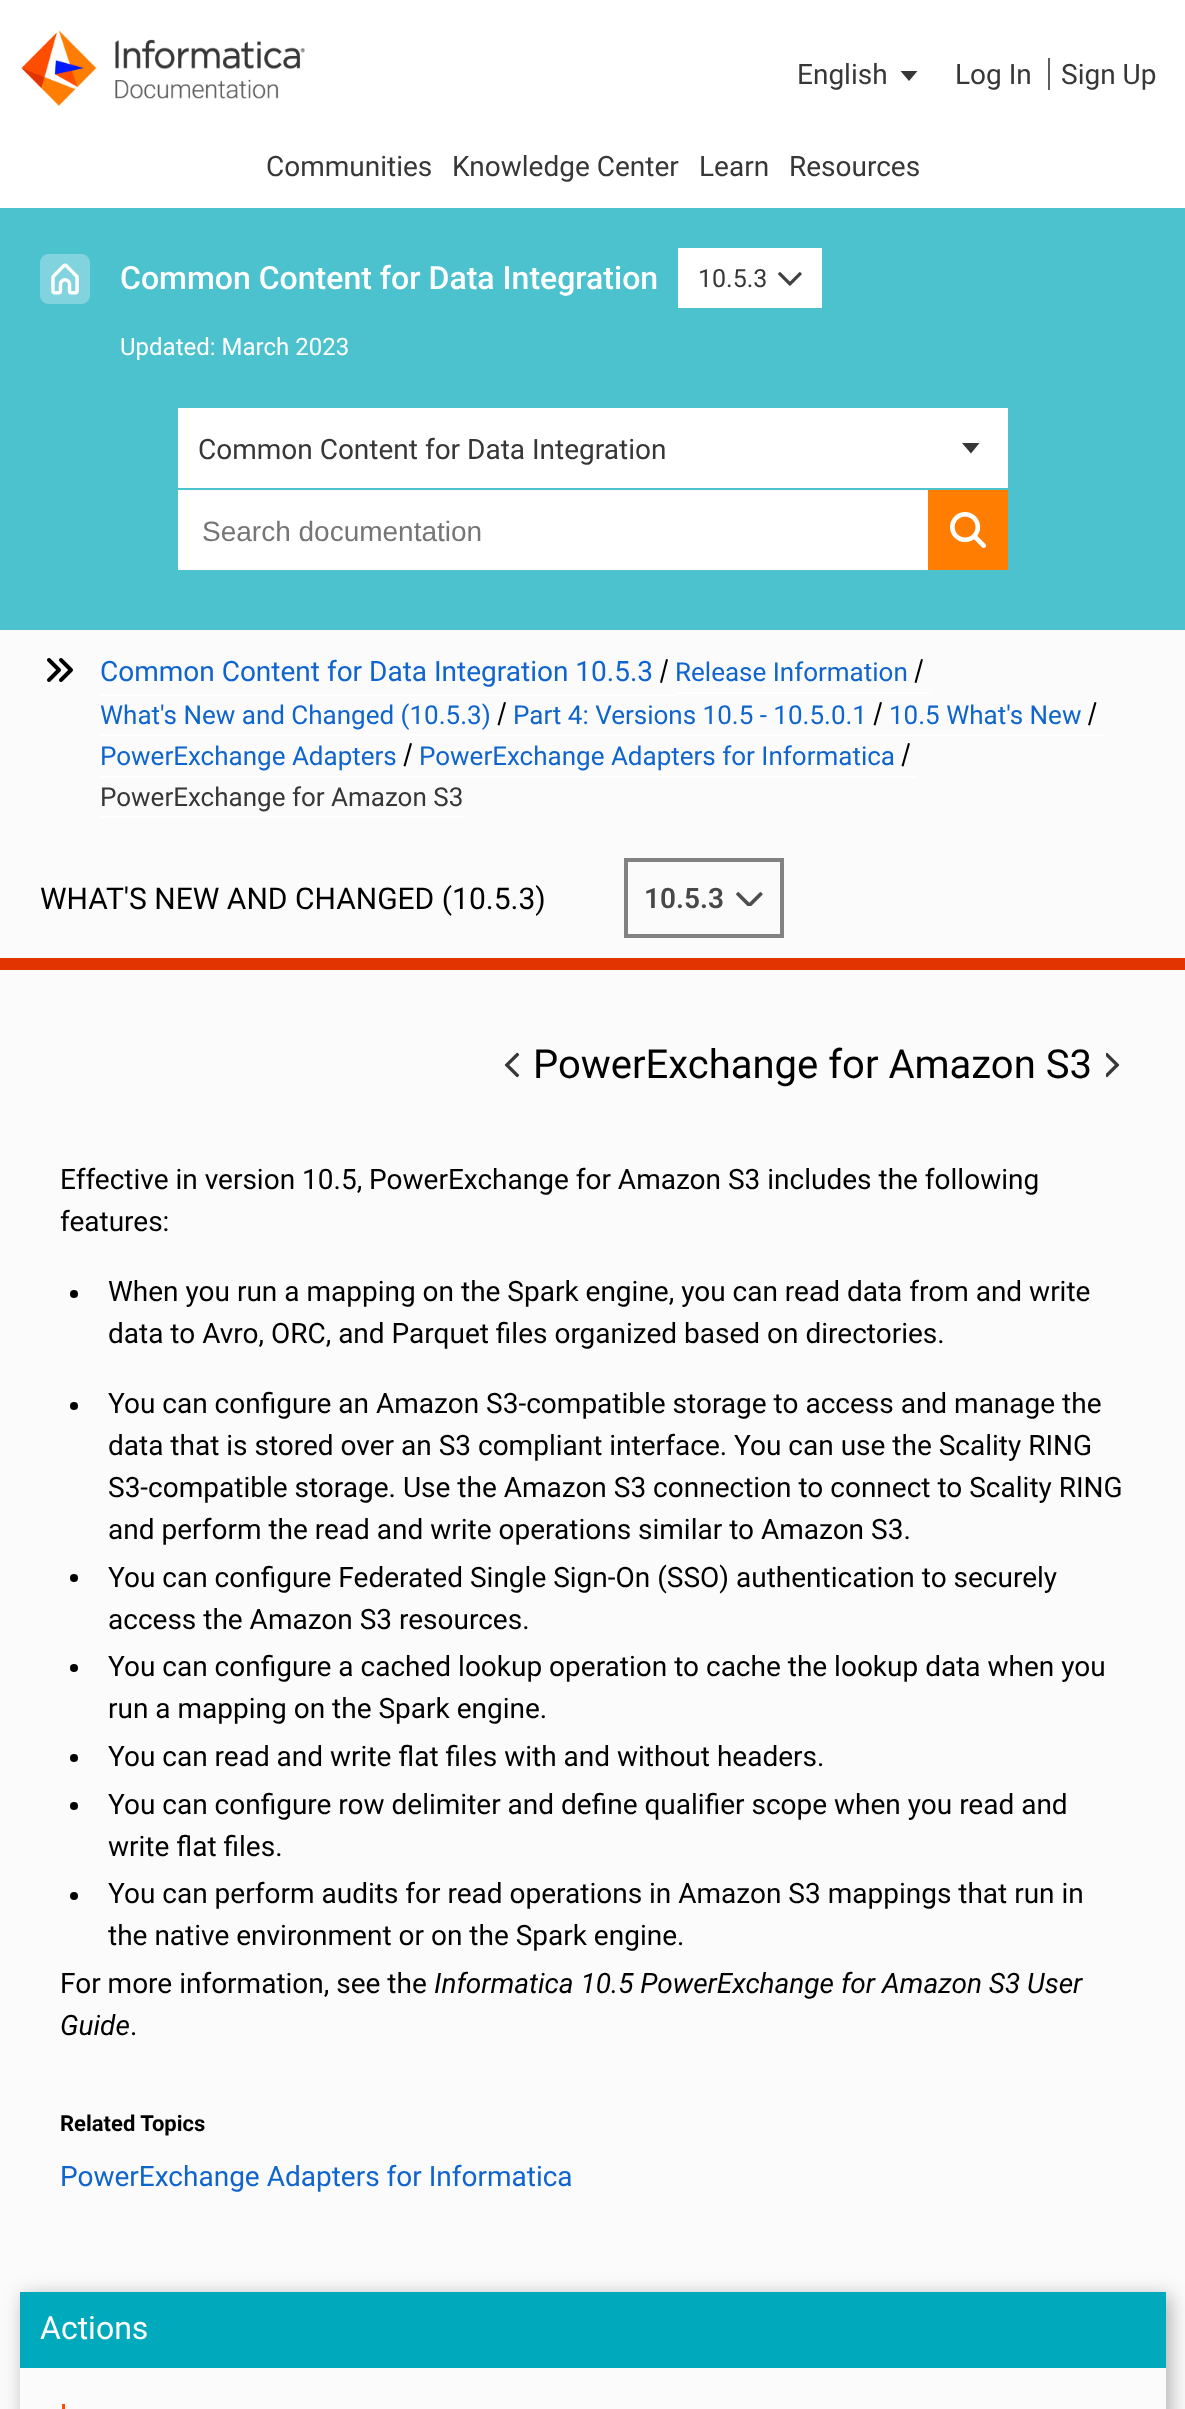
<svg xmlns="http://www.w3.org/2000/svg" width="1185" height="2409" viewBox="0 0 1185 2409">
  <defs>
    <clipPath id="clip1"><path d="M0 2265H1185V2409H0ZM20 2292H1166V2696H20Z" clip-rule="evenodd"/></clipPath>
  </defs>
  <rect width="100%" height="100%" fill="#fff"/>
  <image x="21" y="30" width="284" height="76" href="img/1.png"/>
  <path d="M917.5 71L909 81L900.5 71Z" fill="#373737"/>
  <path d="M1048 58h2v32H1048z" fill="#5d5d5d"/>
  <path d="M0 208h1185v422H0z" fill="#4dc2cf"/>
  <image x="40" y="254" width="50" height="50" href="img/2.png"/>
  <path d="M678 248h144v60H678z" fill="#fff"/>
  <image x="778" y="272" width="24" height="14" href="img/3.png"/>
  <path d="M178 408h830v80H178z" fill="#fff"/>
  <path d="M979.5 443L971 453.5L962 443Z" fill="#373737"/>
  <path d="M178 490h750v80H178z" fill="#fff"/>
  <path d="M928 490h80v80H928z" fill="#ff7d00"/>
  <image x="950" y="512" width="36" height="36" href="img/4.png"/>
  <path d="M0 630h1185v1779H0z" fill="#fbfbfb"/>
  <image x="47" y="658" width="26" height="24" href="img/5.png"/>
  <path d="M100 694h576v2H100z" fill="#fff"/>
  <path d="M666 659L668 659.5L662 683L660 682.5Z" fill="#000"/>
  <path d="M676 692h254v2H676z" fill="#fff"/>
  <path d="M921 659L923 659.5L916.5 683L914.5 682.5Z" fill="#000"/>
  <path d="M100 734h1004v2H100z" fill="#fff"/>
  <path d="M504 702L506 702.5L499.5 725.5L497.5 725Z" fill="#000"/>
  <path d="M880 702L882 702.5L875.5 725.5L873.5 725Z" fill="#000"/>
  <path d="M1094.5 702L1096.5 702.5L1090 725.5L1088 725Z" fill="#000"/>
  <path d="M100 776h816v2H100z" fill="#fff"/>
  <path d="M410 743L412 743.5L405.5 766.5L403.5 766Z" fill="#000"/>
  <path d="M908 743L910 743.5L903.5 766.5L901.5 766Z" fill="#000"/>
  <path d="M100 816h364v2H100z" fill="#fff"/>
  <path d="M626 860h156v76H626z" fill="none" stroke="#828282" stroke-width="4"/>
  <image x="736" y="892" width="27" height="14" href="img/6.png"/>
  <path d="M0 958h1185v12H0z" fill="#e23400"/>
  <image x="504" y="1052" width="16" height="26" href="img/7.png"/>
  <image x="1106" y="1052" width="14" height="26" href="img/8.png"/>
  <circle cx="74" cy="1294" r="4" fill="#000"/>
  <circle cx="74" cy="1406" r="4" fill="#000"/>
  <circle cx="74" cy="1578" r="4" fill="#000"/>
  <circle cx="74" cy="1668" r="4" fill="#000"/>
  <circle cx="74" cy="1758" r="4" fill="#000"/>
  <circle cx="74" cy="1806" r="4" fill="#000"/>
  <circle cx="74" cy="1896" r="4" fill="#000"/>
  <g clip-path="url(#clip1)">
    <path d="M24 2296h1146v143H24z" fill="#0000004d" filter="blur(10px)"/>
  </g>
  <path d="M20 2292h1146v76H20z" fill="#00a9bb"/>
  <path d="M62 2404h3v5H62z" fill="#ff4d00"/>
  <g font-family="Roboto" font-size="28" fill="#373737">
    <text x="797" y="84">English</text>
    <text x="955" y="84">Log In</text>
    <text x="1061" y="84">Sign Up</text>
    <text x="266" y="176">Communities</text>
    <text x="452" y="176">Knowledge Center</text>
    <text x="699" y="176">Learn</text>
    <text x="789" y="176">Resources</text>
  </g>
  <text x="120" y="289" font-family="Roboto" font-size="32" font-weight="500" fill="#fff">Common Content for Data Integration</text>
  <text x="698" y="287" font-family="Roboto" font-size="25" fill="#373737">10.5.3</text>
  <text x="120" y="355" font-family="Roboto" font-size="24" fill="#fff">Updated: March 2023</text>
  <text x="198" y="459" font-family="Roboto" font-size="28" fill="#373737">Common Content for Data Integration</text>
  <text x="202" y="541" font-family="Liberation Sans" font-size="28" fill="#757575">Search documentation</text>
  <text x="100" y="681" font-family="Roboto" font-size="28" fill="#0f64cd">Common Content for Data Integration 10.5.3</text>
  <g font-family="Roboto" font-size="26" fill="#0f64cd">
    <text x="675" y="681">Release Information</text>
    <text x="100" y="724">What's New and Changed (10.5.3)</text>
    <text x="513" y="724">Part 4: Versions 10.5 - 10.5.0.1</text>
    <text x="889" y="724">10.5 What's New</text>
    <text x="100" y="765">PowerExchange Adapters</text>
    <text x="419" y="765">PowerExchange Adapters for Informatica</text>
  </g>
  <text x="100" y="806" font-family="Roboto" font-size="26" fill="#373737">PowerExchange for Amazon S3</text>
  <text x="40" y="909" font-family="Roboto" font-size="30" fill="#000">WHAT'S NEW AND CHANGED (10.5.3)</text>
  <text x="644" y="908" font-family="Roboto" font-size="28" font-weight="600" fill="#484848">10.5.3</text>
  <text x="533" y="1078" font-family="Roboto" font-size="40" fill="#000">PowerExchange for Amazon S3</text>
  <g font-family="Roboto" font-size="28" fill="#000">
    <text x="60" y="1189">Effective in version 10.5, PowerExchange for Amazon S3 includes the following</text>
    <text x="60" y="1231">features:</text>
    <text x="108" y="1301">When you run a mapping on the Spark engine, you can read data from and write</text>
    <text x="108" y="1343">data to Avro, ORC, and Parquet files organized based on directories.</text>
    <text x="108" y="1413">You can configure an Amazon S3-compatible storage to access and manage the</text>
    <text x="108" y="1455">data that is stored over an S3 compliant interface. You can use the Scality RING</text>
    <text x="108" y="1497">S3-compatible storage. Use the Amazon S3 connection to connect to Scality RING</text>
    <text x="108" y="1539">and perform the read and write operations similar to Amazon S3.</text>
    <text x="108" y="1587">You can configure Federated Single Sign-On (SSO) authentication to securely</text>
    <text x="108" y="1629">access the Amazon S3 resources.</text>
    <text x="108" y="1676">You can configure a cached lookup operation to cache the lookup data when you</text>
    <text x="108" y="1718">run a mapping on the Spark engine.</text>
    <text x="108" y="1766">You can read and write flat files with and without headers.</text>
    <text x="108" y="1814">You can configure row delimiter and define qualifier scope when you read and</text>
    <text x="108" y="1856">write flat files.</text>
    <text x="108" y="1903">You can perform audits for read operations in Amazon S3 mappings that run in</text>
    <text x="108" y="1945">the native environment or on the Spark engine.</text>
    <text x="60" y="1993">For more information, see the</text>
  </g>
  <g font-family="Roboto" font-size="28" font-style="italic" fill="#000">
    <text x="434" y="1993">Informatica 10.5 PowerExchange for Amazon S3 User</text>
    <text x="60" y="2035">Guide</text>
  </g>
  <text x="130" y="2035" font-family="Roboto" font-size="28" fill="#000">.</text>
  <text x="60" y="2131" font-family="Roboto" font-size="22" font-weight="bold" fill="#000">Related Topics</text>
  <text x="60" y="2186" font-family="Roboto" font-size="28" fill="#0f64cd">PowerExchange Adapters for Informatica</text>
  <text x="40" y="2339" font-family="Roboto" font-size="32" fill="#fff">Actions</text>
</svg>
